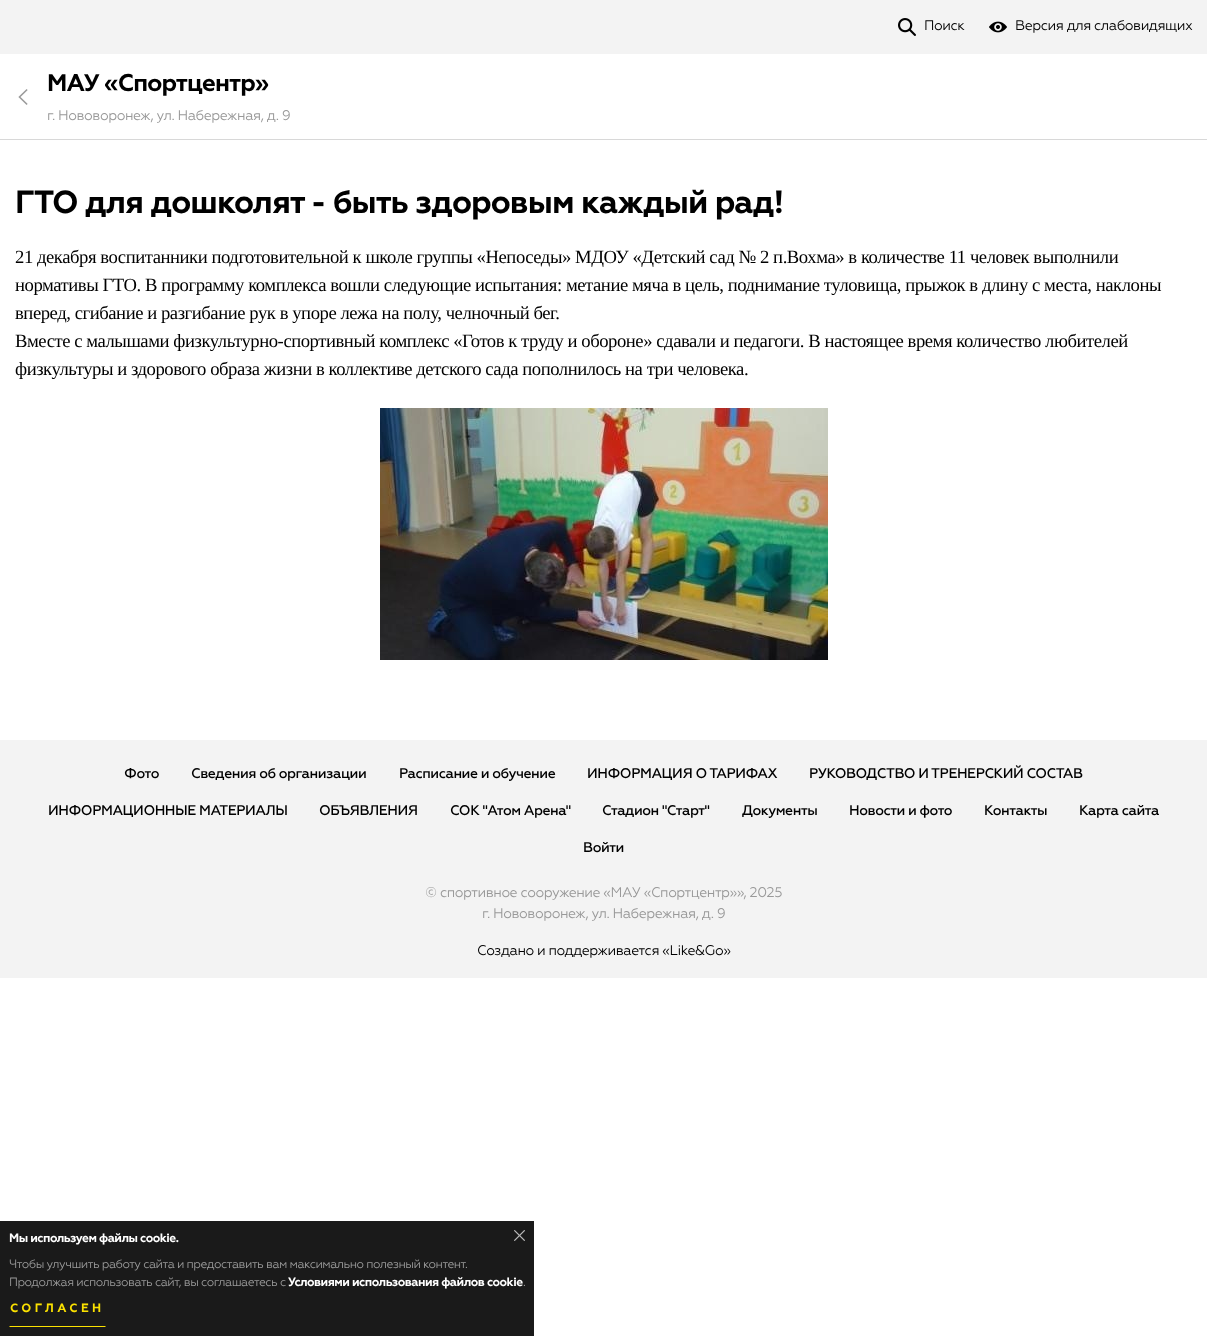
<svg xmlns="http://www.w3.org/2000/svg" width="1207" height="1336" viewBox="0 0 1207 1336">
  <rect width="100%" height="100%" fill="#fff"/>
  <path d="M0 0h1207v54H0z" fill="#f3f3f3"/>
  <image x="898" y="18" width="18" height="18" href="img/1.png"/>
  <image x="989" y="21" width="18" height="12" href="img/2.png"/>
  <path d="M0 139h1207v1H0z" fill="#d8d8d8"/>
  <image x="18" y="89" width="10" height="16" href="img/3.png"/>
  <image x="380" y="408" width="448" height="252" href="img/4.png"/>
  <path d="M0 740h1207v238H0z" fill="#f3f3f3"/>
  <path d="M0 1221h534v115H0z" fill="#1a1a1a"/>
  <image x="514" y="1230" width="11" height="11" href="img/5.png"/>
  <path d="M106 1327H9L10 1326H105Z" fill="#fbe100"/>
  <g font-family="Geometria" font-size="14" letter-spacing="-0.45" fill="#000">
    <text x="924" y="30">Поиск</text>
    <text x="1015" y="30">Версия для слабовидящих</text>
  </g>
  <text x="47" y="91" font-family="Geometria" font-size="24" font-weight="bold" letter-spacing="-0.75" fill="#000">МАУ «Спортцентр»</text>
  <text x="47" y="120" font-family="Geometria" font-size="14" letter-spacing="-0.45" fill="#999">г. Нововоронеж, ул. Набережная, д. 9</text>
  <text x="15" y="213" font-family="Geometria" font-size="32" font-weight="bold" letter-spacing="-0.9" fill="#000">ГТО для дошколят - быть здоровым каждый рад!</text>
  <g font-family="Liberation Serif" font-size="18.67" letter-spacing="-0.45" fill="#000">
    <text x="15" y="263">21 декабря воспитанники подготовительной к школе группы «Непоседы» МДОУ «Детский сад № 2 п.Вохма» в количестве 11 человек выполнили</text>
    <text x="15" y="291">нормативы ГТО. В программу комплекса вошли следующие испытания: метание мяча в цель, поднимание туловища, прыжок в длину с места, наклоны</text>
    <text x="15" y="319">вперед, сгибание и разгибание рук в упоре лежа на полу, челночный бег.</text>
    <text x="15" y="347">Вместе с малышами физкультурно-спортивный комплекс «Готов к труду и обороне» сдавали и педагоги. В настоящее время количество любителей</text>
    <text x="15" y="375">физкультуры и здорового образа жизни в коллективе детского сада пополнилось на три человека.</text>
  </g>
  <g font-family="Geometria" font-size="14" font-weight="500" letter-spacing="-0.45" fill="#000">
    <text x="124" y="778">Фото</text>
    <text x="191" y="778">Сведения об организации</text>
    <text x="399" y="778">Расписание и обучение</text>
    <text x="587" y="778">ИНФОРМАЦИЯ О ТАРИФАХ</text>
    <text x="809" y="778">РУКОВОДСТВО И ТРЕНЕРСКИЙ СОСТАВ</text>
    <text x="48" y="815">ИНФОРМАЦИОННЫЕ МАТЕРИАЛЫ</text>
    <text x="319" y="815">ОБЪЯВЛЕНИЯ</text>
    <text x="450" y="815">СОК "Атом Арена"</text>
    <text x="602" y="815">Стадион "Старт"</text>
    <text x="742" y="815">Документы</text>
    <text x="849" y="815">Новости и фото</text>
    <text x="984" y="815">Контакты</text>
    <text x="1079" y="815">Карта сайта</text>
    <text x="583" y="852">Войти</text>
  </g>
  <g font-family="Geometria" font-size="14" letter-spacing="-0.45" fill="#999">
    <text x="425" y="897">© спортивное сооружение «МАУ «Спортцентр»», 2025</text>
    <text x="482" y="918">г. Нововоронеж, ул. Набережная, д. 9</text>
  </g>
  <text x="477" y="955" font-family="Geometria" font-size="14" letter-spacing="-0.45" fill="#000">Создано и поддерживается «Like&amp;Go»</text>
  <text x="9" y="1242" font-family="Geometria" font-size="12" font-weight="bold" letter-spacing="-0.5" fill="#fff">Мы используем файлы cookie.</text>
  <g font-family="Geometria" font-size="12" letter-spacing="-0.5" fill="#999">
    <text x="9" y="1268">Чтобы улучшить работу сайта и предоставить вам максимально полезный контент.</text>
    <text x="9" y="1286">Продолжая использовать сайт, вы соглашаетесь с</text>
  </g>
  <text x="288" y="1286" font-family="Geometria" font-size="12" font-weight="bold" letter-spacing="-0.5" fill="#fff">Условиями использования файлов cookie</text>
  <text x="523" y="1286" font-family="Geometria" font-size="12" letter-spacing="-0.5" fill="#999">.</text>
  <text x="10" y="1312" font-family="Geometria" font-size="12" font-weight="bold" letter-spacing="3.5" fill="#fbe100">СОГЛАСЕН</text>
</svg>
